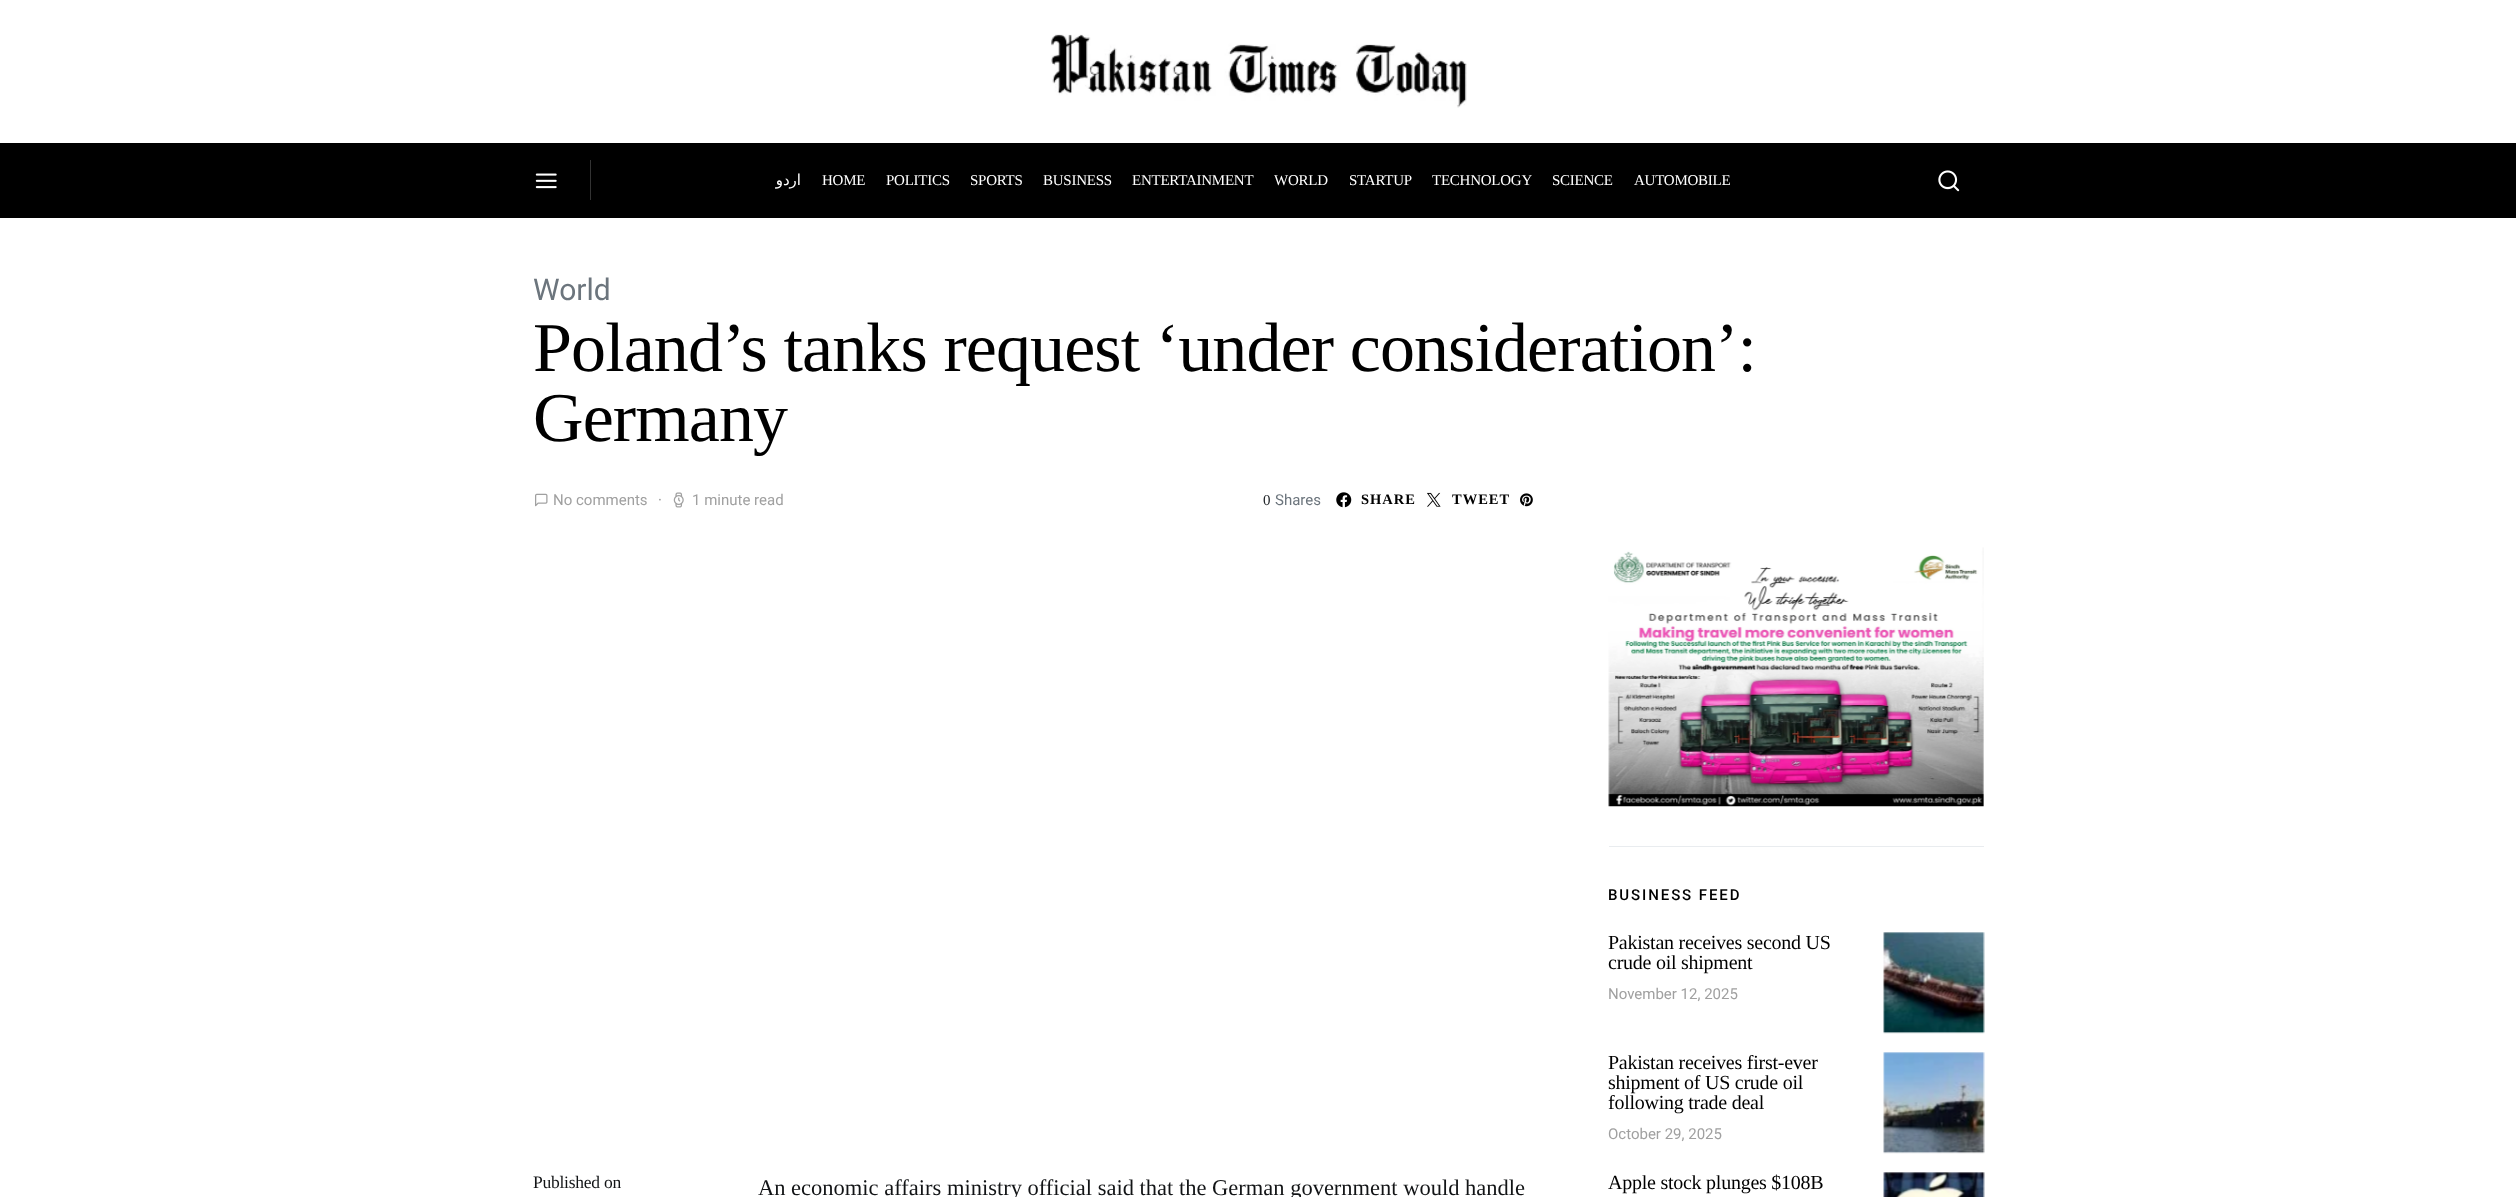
<svg xmlns="http://www.w3.org/2000/svg" width="2516" height="1197" viewBox="0 0 2516 1197">
  <rect width="100%" height="100%" fill="#fff"/>
  <image x="1050" y="34" width="417" height="74" href="img/1.png"/>
  <path d="M0 143h2516v75H0z" fill="#000"/>
  <path d="M590 160h1v40H590z" fill="#333"/>
  <image x="535" y="173" width="22" height="16" href="img/2.png"/>
  <image x="1938" y="170" width="22" height="22" href="img/3.png"/>
  <image x="535" y="493" width="13" height="14" href="img/4.png"/>
  <image x="673" y="492" width="11" height="16" href="img/5.png"/>
  <image x="1336" y="492" width="16" height="16" href="img/6.png"/>
  <image x="1427" y="492" width="14" height="15" href="img/7.png"/>
  <image x="1520" y="493" width="13" height="14" href="img/8.png"/>
  <path d="M1609 846h375v1H1609z" fill="#e9ecef"/>
  <image x="1608" y="547" width="376" height="260" href="img/9.png"/>
  <image x="1883" y="932" width="102" height="102" href="img/10.png"/>
  <image x="1883" y="1052" width="102" height="102" href="img/11.png"/>
  <image x="1883" y="1172" width="102" height="25" href="img/12.png"/>
  <text x="801" y="185" font-family="DejaVu Sans" font-size="15" letter-spacing="-0.25" direction="rtl" fill="#fff">اردو</text>
  <g font-family="Liberation Serif" font-size="15" letter-spacing="-0.25" fill="#fff">
    <text x="822" y="185">HOME</text>
    <text x="886" y="185">POLITICS</text>
    <text x="970" y="185">SPORTS</text>
    <text x="1043" y="185">BUSINESS</text>
    <text x="1132" y="185">ENTERTAINMENT</text>
    <text x="1274" y="185">WORLD</text>
    <text x="1349" y="185">STARTUP</text>
    <text x="1432" y="185">TECHNOLOGY</text>
    <text x="1552" y="185">SCIENCE</text>
    <text x="1634" y="185">AUTOMOBILE</text>
  </g>
  <text x="533" y="300" font-family="Roboto" font-size="30" fill="#6c757d">World</text>
  <g font-family="Liberation Serif" font-size="70" letter-spacing="-0.9" fill="#000">
    <text x="533" y="371">Poland’s tanks request ‘under consideration’:</text>
    <text x="533" y="441">Germany</text>
  </g>
  <g font-family="Roboto" font-size="15" fill="#a0a0a0">
    <text x="553" y="505">No comments</text>
    <text x="658" y="505">·</text>
    <text x="692" y="505">1 minute read</text>
  </g>
  <text x="1263" y="505" font-family="Liberation Serif" font-size="15" letter-spacing="-0.25" fill="#212529">0</text>
  <text x="1275" y="505" font-family="Roboto" font-size="15" fill="#6c757d">Shares</text>
  <g font-family="Liberation Serif" font-size="14.5" font-weight="bold" letter-spacing="1" fill="#000">
    <text x="1361" y="504">SHARE</text>
    <text x="1452" y="504">TWEET</text>
  </g>
  <text x="533" y="1188" font-family="Liberation Serif" font-size="17.5" letter-spacing="-0.25" fill="#121416">Published on</text>
  <text x="758" y="1195" font-family="Liberation Serif" font-size="22.5" fill="#121416">An economic affairs ministry official said that the German government would handle</text>
  <text x="1608" y="900" font-family="Roboto" font-size="15" font-weight="500" letter-spacing="1.9" fill="#000">BUSINESS FEED</text>
  <g font-family="Liberation Serif" font-size="20" letter-spacing="-0.25" fill="#000">
    <text x="1608" y="949">Pakistan receives second US</text>
    <text x="1608" y="969">crude oil shipment</text>
  </g>
  <text x="1608" y="999" font-family="Roboto" font-size="15" fill="#a0a0a0">November 12, 2025</text>
  <g font-family="Liberation Serif" font-size="20" letter-spacing="-0.25" fill="#000">
    <text x="1608" y="1069">Pakistan receives first-ever</text>
    <text x="1608" y="1089">shipment of US crude oil</text>
    <text x="1608" y="1109">following trade deal</text>
  </g>
  <text x="1608" y="1139" font-family="Roboto" font-size="15" fill="#a0a0a0">October 29, 2025</text>
  <text x="1608" y="1189" font-family="Liberation Serif" font-size="20" letter-spacing="-0.25" fill="#000">Apple stock plunges $108B</text>
</svg>
